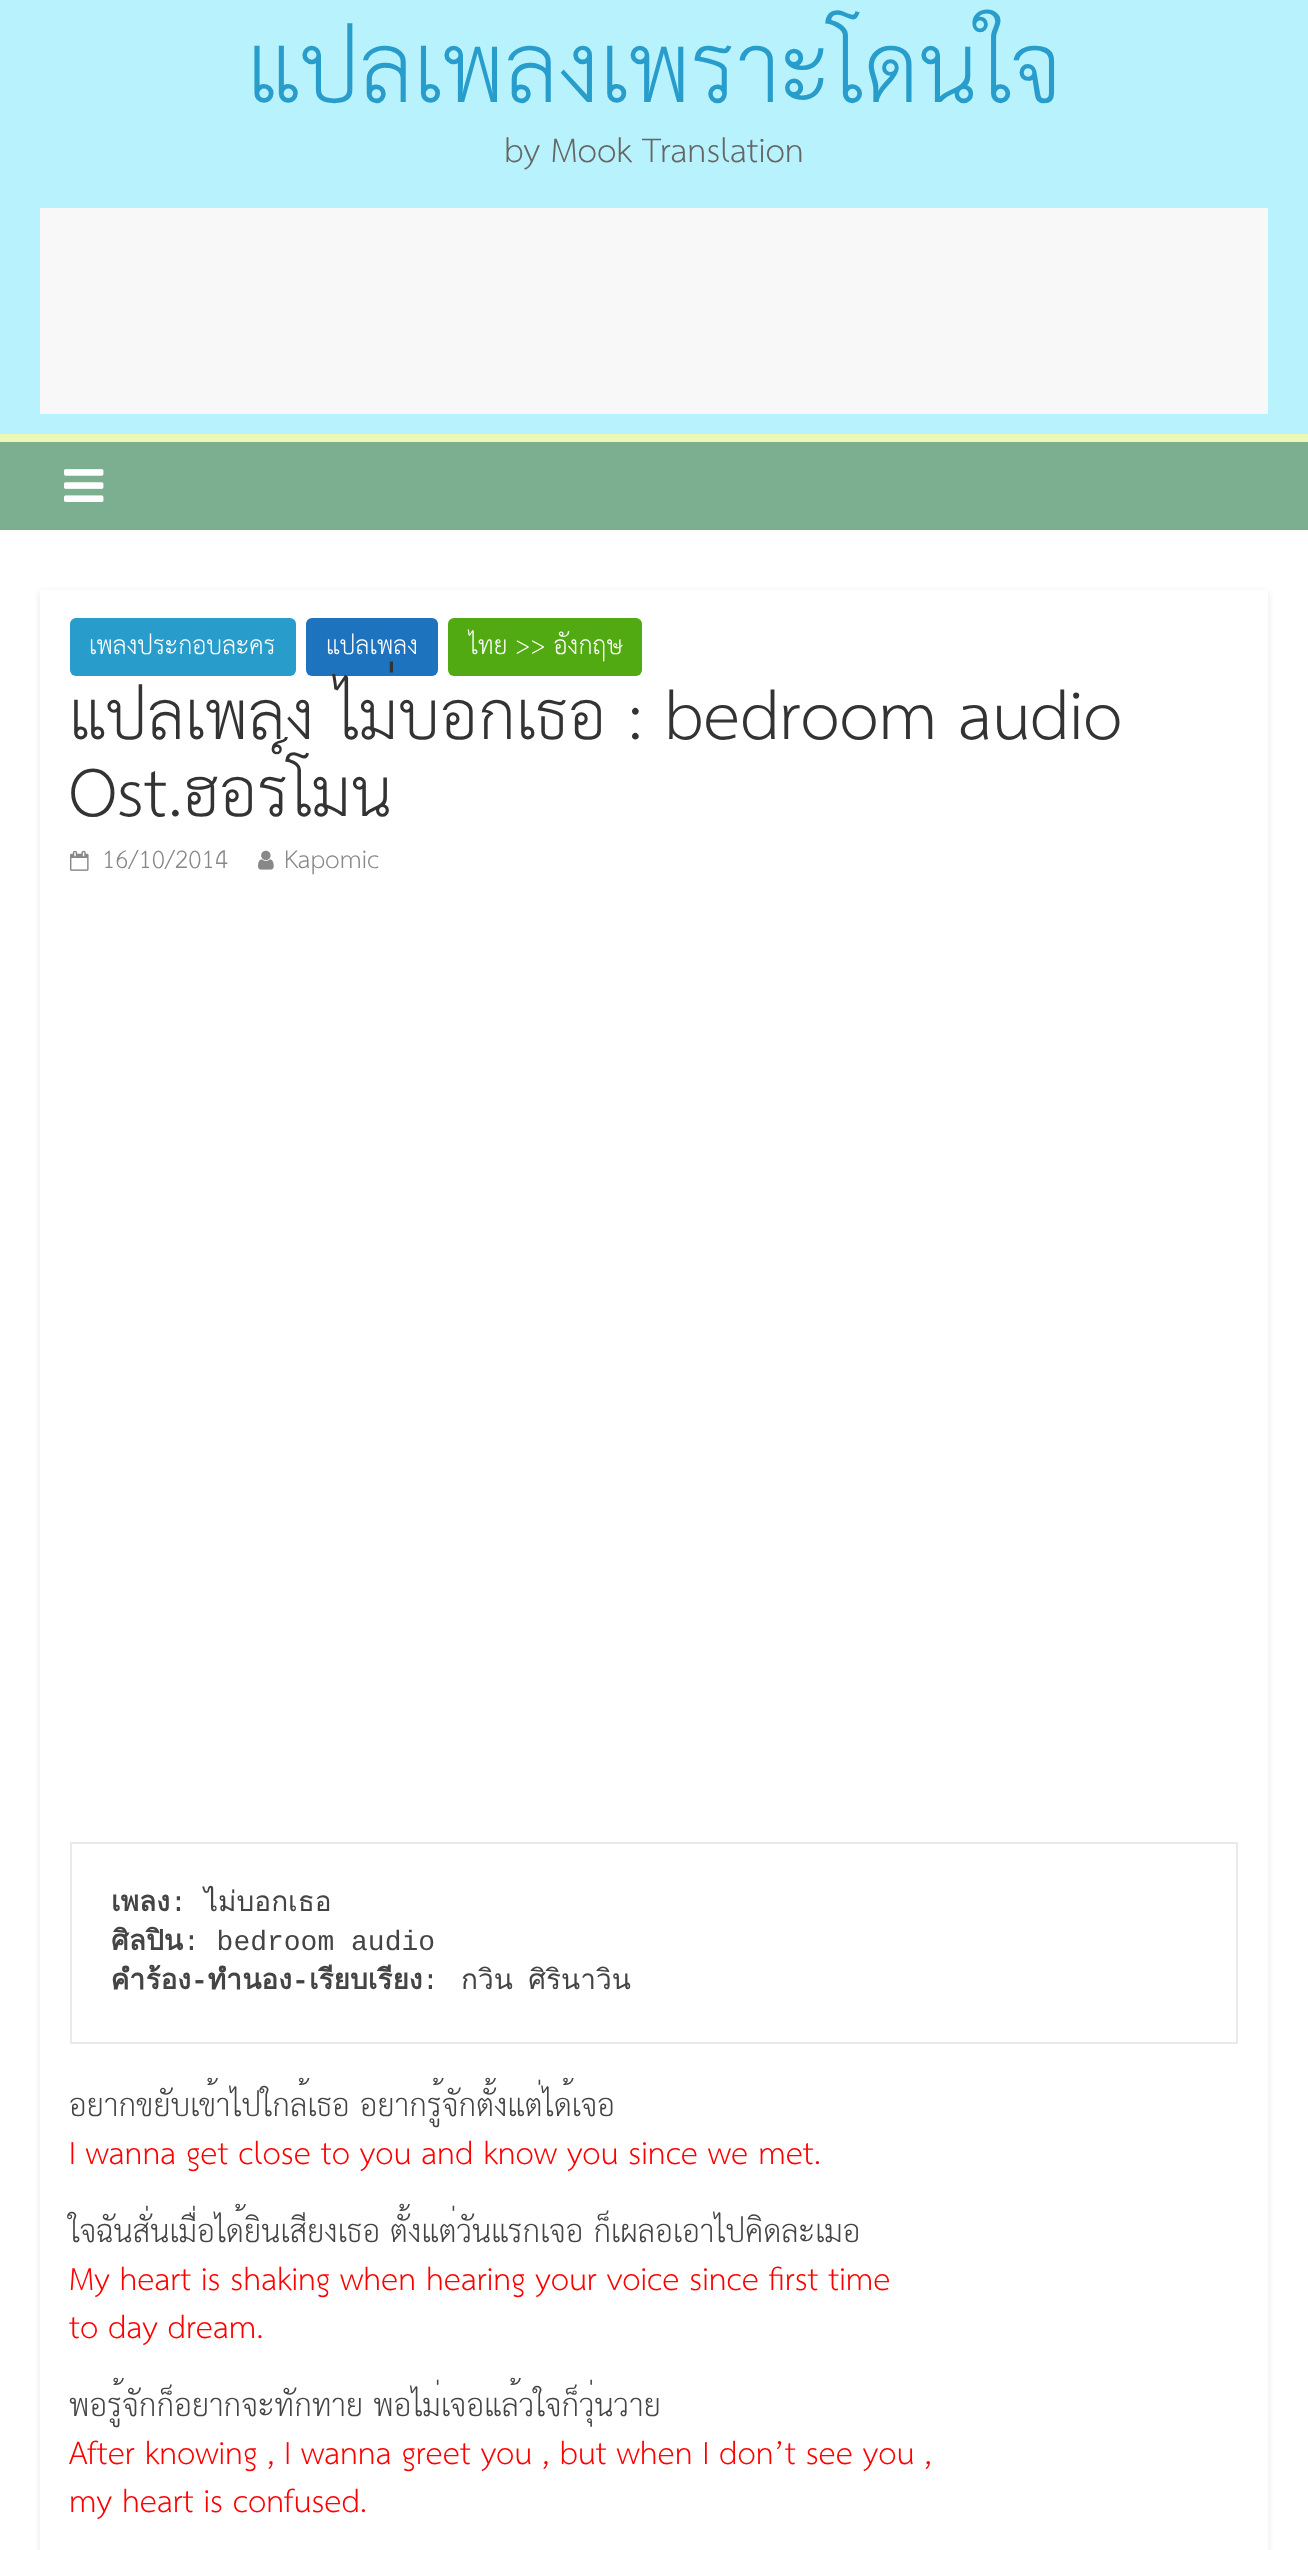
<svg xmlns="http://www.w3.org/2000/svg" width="1308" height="2550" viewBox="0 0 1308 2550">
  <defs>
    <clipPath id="clip1"><path d="M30 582H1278V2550H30ZM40 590H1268V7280H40Z" clip-rule="evenodd"/></clipPath>
  </defs>
  <rect width="100%" height="100%" fill="#b8f2fc"/>
  <path d="M40 208h1228v206H40z" fill="#f8f8f8"/>
  <path d="M0 442h1308v88H0z" fill="#7caf90"/>
  <path d="M0 434h1308v8H0z" fill="#eef7b4"/>
  <image x="64" y="469" width="40" height="33" href="img/1.png"/>
  <path d="M0 530h1308v2020H0z" fill="#fff"/>
  <g clip-path="url(#clip1)">
    <path d="M40 592h1228v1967H40z" fill="#0000001a" filter="blur(3px)"/>
  </g>
  <rect x="70" y="618" width="226" height="58" rx="6" fill="#289dcc"/>
  <rect x="306" y="618" width="132" height="58" rx="6" fill="#1e73be"/>
  <rect x="448" y="618" width="194" height="58" rx="6" fill="#51aa11"/>
  <image x="70" y="850" width="19" height="21" href="img/2.png"/>
  <image x="258" y="850" width="16" height="20" href="img/3.png"/>
  <path d="M71 1843h1166v200H71z" fill="none" stroke="#eaeaea" stroke-width="2"/>
  <text x="247" y="102" font-family="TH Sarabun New" font-size="92" fill="#289dcc">แปลเพลงเพราะโดนใจ</text>
  <text x="504" y="162" font-family="TH Sarabun New" font-size="32" fill="#666">by Mook Translation</text>
  <g font-family="TH Sarabun New" font-size="24" fill="#fff">
    <text x="89" y="654">เพลงประกอบละคร</text>
    <text x="326" y="654">แปลเพลง</text>
    <text x="469" y="654">ไทย &gt;&gt; อังกฤษ</text>
  </g>
  <g font-family="TH Sarabun New" font-size="64" fill="#333">
    <text x="69" y="739">แปลเพลง ไม่บอกเธอ : bedroom audio</text>
    <text x="69" y="816">Ost.ฮอร์โมน</text>
  </g>
  <g font-family="TH Sarabun New" font-size="24" fill="#888">
    <text x="102" y="868">16/10/2014</text>
    <text x="284" y="868">Kapomic</text>
  </g>
  <text x="111" y="1911" font-family="Loma" font-size="28" font-weight="bold" fill="#444">เพลง</text>
  <text x="170" y="1911" font-family="Liberation Mono" font-size="28" fill="#444">:</text>
  <text x="204" y="1911" font-family="Loma" font-size="28" fill="#444">ไม่บอกเธอ</text>
  <text x="111" y="1950" font-family="Loma" font-size="28" font-weight="bold" fill="#444">ศิลปิน</text>
  <text x="183" y="1950" font-family="Liberation Mono" font-size="28" fill="#444">: bedroom audio</text>
  <text x="111" y="1989" font-family="Loma" font-size="28" font-weight="bold" fill="#444">คำร้อง</text>
  <text x="191" y="1989" font-family="Liberation Mono" font-size="28" font-weight="bold" fill="#444">-</text>
  <text x="208" y="1989" font-family="Loma" font-size="28" font-weight="bold" fill="#444">ทำนอง</text>
  <text x="292" y="1989" font-family="Liberation Mono" font-size="28" font-weight="bold" fill="#444">-</text>
  <text x="309" y="1989" font-family="Loma" font-size="28" font-weight="bold" fill="#444">เรียบเรียง</text>
  <text x="422" y="1989" font-family="Liberation Mono" font-size="28" fill="#444">:</text>
  <text x="461" y="1989" word-spacing="6" font-family="Loma" font-size="28" fill="#444">กวิน ศิรินาวิน</text>
  <text x="69" y="2116" font-family="TH Sarabun New" font-size="30" fill="#444">อยากขยับเข้าไปใกล้เธอ อยากรู้จักตั้งแต่ได้เจอ</text>
  <text x="69" y="2164" font-family="TH Sarabun New" font-size="30" fill="#f00">I wanna get close to you and know you since we met.</text>
  <text x="69" y="2242" font-family="TH Sarabun New" font-size="30" fill="#444">ใจฉันสั่นเมื่อได้ยินเสียงเธอ ตั้งแต่วันแรกเจอ ก็เผลอเอาไปคิดละเมอ</text>
  <g font-family="TH Sarabun New" font-size="30" fill="#f00">
    <text x="69" y="2290">My heart is shaking when hearing your voice since first time</text>
    <text x="69" y="2338">to day dream.</text>
  </g>
  <text x="69" y="2416" font-family="TH Sarabun New" font-size="30" fill="#444">พอรู้จักก็อยากจะทักทาย พอไม่เจอแล้วใจก็วุ่นวาย</text>
  <g font-family="TH Sarabun New" font-size="30" fill="#f00">
    <text x="69" y="2464">After knowing , I wanna greet you , but when I don’t see you ,</text>
    <text x="69" y="2512">my heart is confused.</text>
  </g>
</svg>
